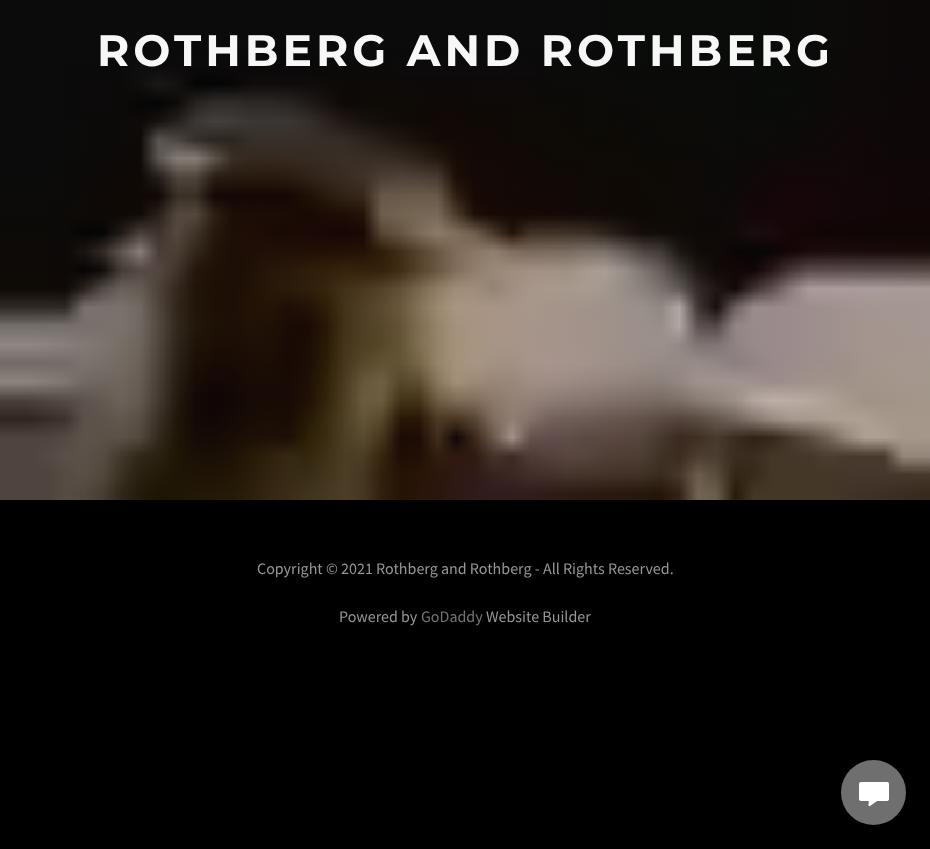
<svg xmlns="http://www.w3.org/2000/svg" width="930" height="849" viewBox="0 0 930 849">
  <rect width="100%" height="100%" fill="#000"/>
  <image x="0" y="0" width="930" height="500" href="img/1.png"/>
  <circle cx="873.5" cy="792.5" r="32.5" fill="#6f6f6f"/>
  <image x="859" y="782" width="30" height="25" href="img/2.png"/>
  <text x="97" y="66" font-family="Montserrat" font-size="44" font-weight="bold" letter-spacing="4" fill="#f7f7f7">ROTHBERG AND ROTHBERG</text>
  <g font-family="Source Sans Pro" font-size="16" fill="#969696">
    <text x="257" y="574">Copyright © 2021 Rothberg and Rothberg - All Rights Reserved.</text>
    <text x="339" y="622">Powered by</text>
  </g>
  <text x="421" y="622" font-family="Source Sans Pro" font-size="16" fill="#757575">GoDaddy</text>
  <text x="486" y="622" font-family="Source Sans Pro" font-size="16" fill="#969696">Website Builder</text>
</svg>
